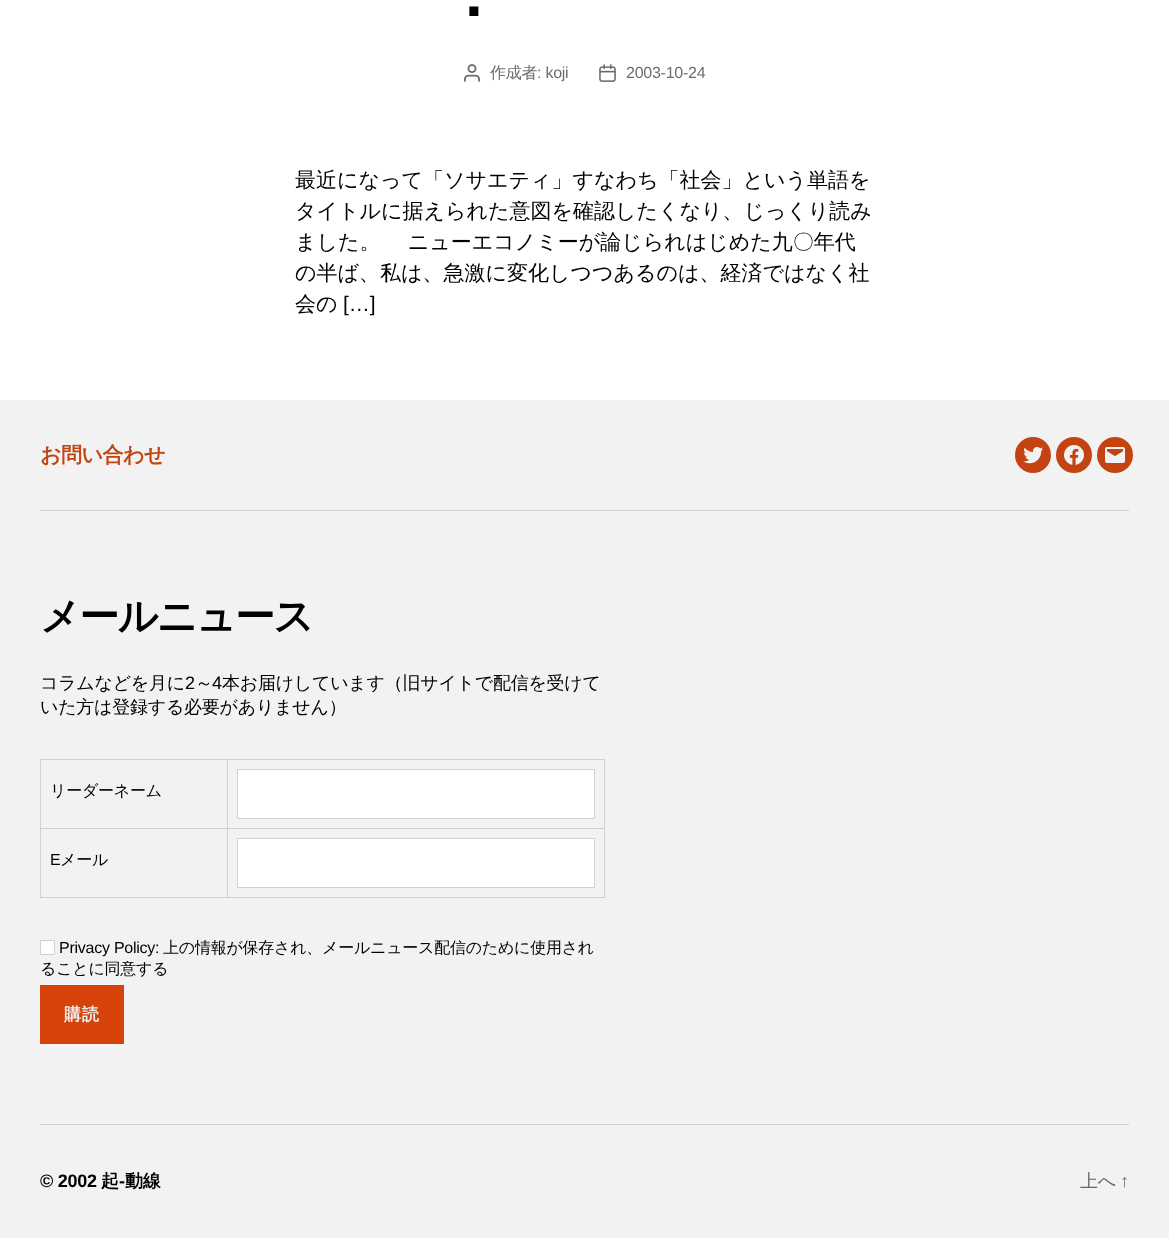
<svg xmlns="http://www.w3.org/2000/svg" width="1169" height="1238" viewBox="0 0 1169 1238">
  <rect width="100%" height="100%" fill="#fff"/>
  <image x="464" y="64" width="16" height="18" href="img/1.png"/>
  <image x="599" y="64" width="17" height="18" href="img/2.png"/>
  <path d="M0 400h1169v838H0z" fill="#f2f2f2"/>
  <path d="M40 510h1089v1H40z" fill="#d1d1d1"/>
  <circle cx="1033" cy="455" r="18" fill="#c34412"/>
  <image x="1023" y="447" width="20" height="17" href="img/3.png"/>
  <circle cx="1074" cy="455" r="18" fill="#c34412"/>
  <image x="1064" y="445" width="20" height="20" href="img/4.png"/>
  <circle cx="1115" cy="455" r="18" fill="#c34412"/>
  <image x="1105" y="447" width="20" height="16" href="img/5.png"/>
  <path d="M40 1124h1089v1H40z" fill="#d1d1d1"/>
  <path d="M40 759h565v1H40z" fill="#d1d1d1"/>
  <path d="M604 759h1v139H604z" fill="#d1d1d1"/>
  <path d="M40 897h565v1H40z" fill="#d1d1d1"/>
  <path d="M40 759h1v139H40z" fill="#d1d1d1"/>
  <path d="M227 828h377v1H227z" fill="#d1d1d1"/>
  <path d="M227 828h1v69H227z" fill="#d1d1d1"/>
  <path d="M41 828h187v1H41z" fill="#d1d1d1"/>
  <path d="M227 760h1v69H227z" fill="#d1d1d1"/>
  <path d="M237.5 769.5h357v49H237.5z" fill="#fff" stroke="#d1d1d1"/>
  <path d="M237.5 838.5h357v49H237.5z" fill="#fff" stroke="#d1d1d1"/>
  <path d="M40.5 940.5h14v14H40.5z" fill="#fff" stroke="#d1d1d1"/>
  <path d="M40 985h84v59H40z" fill="#d6430a"/>
  <text x="465" y="16" font-family="Liberation Sans" font-size="64" font-weight="bold" letter-spacing="-3" fill="#000">.</text>
  <text x="490" y="78" font-family="WenQuanYi Zen Hei" font-size="16" font-weight="500" letter-spacing="-0.25" fill="#6d6d6d">作成者</text>
  <g font-family="Liberation Sans" font-size="16" letter-spacing="-0.25" fill="#6d6d6d">
    <text x="537" y="78">: koji</text>
    <text x="626" y="78">2003-10-24</text>
  </g>
  <g font-family="WenQuanYi Zen Hei" font-size="21" font-weight="500" fill="#000">
    <text x="295" y="187">最近になって「ソサエティ」すなわち「社会」という単語を</text>
    <text x="295" y="218">タイトルに据えられた意図を確認したくなり、じっくり読み</text>
    <text x="295" y="249">ました。 　ニューエコノミーが論じられはじめた九〇年代</text>
    <text x="295" y="280">の半ば、私は、急激に変化しつつあるのは、経済ではなく社</text>
    <text x="295" y="311">会の</text>
  </g>
  <text x="343" y="311" font-family="Liberation Sans" font-size="21" fill="#000">[…]</text>
  <text x="40" y="462" font-family="WenQuanYi Zen Hei" font-size="21" font-weight="bold" letter-spacing="-0.5" fill="#c34412">お問い合わせ</text>
  <text x="40" y="630" font-family="WenQuanYi Zen Hei" font-size="40" font-weight="bold" letter-spacing="-1.75" fill="#000">メールニュース</text>
  <text x="40" y="689" font-family="WenQuanYi Zen Hei" font-size="18" font-weight="500" letter-spacing="-0.25" fill="#000">コラムなどを月に</text>
  <text x="185" y="689" font-family="Liberation Sans" font-size="18" letter-spacing="-0.25" fill="#000">2</text>
  <text x="195" y="689" font-family="WenQuanYi Zen Hei" font-size="18" font-weight="500" letter-spacing="-0.25" fill="#000">～</text>
  <text x="212" y="689" font-family="Liberation Sans" font-size="18" letter-spacing="-0.25" fill="#000">4</text>
  <g font-family="WenQuanYi Zen Hei" font-size="18" font-weight="500" letter-spacing="-0.25" fill="#000">
    <text x="222" y="689">本お届けしています（旧サイトで配信を受けて</text>
    <text x="40" y="713">いた方は登録する必要がありません）</text>
  </g>
  <text x="50" y="796" font-family="WenQuanYi Zen Hei" font-size="16" font-weight="500" letter-spacing="-0.25" fill="#000">リーダーネーム</text>
  <text x="50" y="865" font-family="Liberation Sans" font-size="16" letter-spacing="-0.25" fill="#000">E</text>
  <text x="60" y="865" font-family="WenQuanYi Zen Hei" font-size="16" font-weight="500" letter-spacing="-0.25" fill="#000">メール</text>
  <text x="59" y="953" font-family="Liberation Sans" font-size="16" letter-spacing="-0.25" fill="#000">Privacy Policy:</text>
  <g font-family="WenQuanYi Zen Hei" font-size="16" font-weight="500" letter-spacing="-0.25" fill="#000">
    <text x="163" y="953">上の情報が保存され、メールニュース配信のために使用され</text>
    <text x="40" y="974">ることに同意する</text>
  </g>
  <text x="64" y="1020" font-family="WenQuanYi Zen Hei" font-size="17" font-weight="bold" letter-spacing="1" fill="#f2f2f2">購読</text>
  <text x="40" y="1187" font-family="Liberation Sans" font-size="18" font-weight="bold" letter-spacing="-0.25" fill="#000">© 2002</text>
  <text x="101" y="1187" font-family="WenQuanYi Zen Hei" font-size="18" font-weight="bold" letter-spacing="-0.25" fill="#000">起</text>
  <text x="119" y="1187" font-family="Liberation Sans" font-size="18" font-weight="bold" letter-spacing="-0.25" fill="#000">-</text>
  <text x="125" y="1187" font-family="WenQuanYi Zen Hei" font-size="18" font-weight="bold" letter-spacing="-0.25" fill="#000">動線</text>
  <text x="1080" y="1187" font-family="WenQuanYi Zen Hei" font-size="18" font-weight="500" letter-spacing="-0.25" fill="#666">上へ</text>
  <text x="1120" y="1187" font-family="Liberation Sans" font-size="18" letter-spacing="-0.25" fill="#666">↑</text>
</svg>
